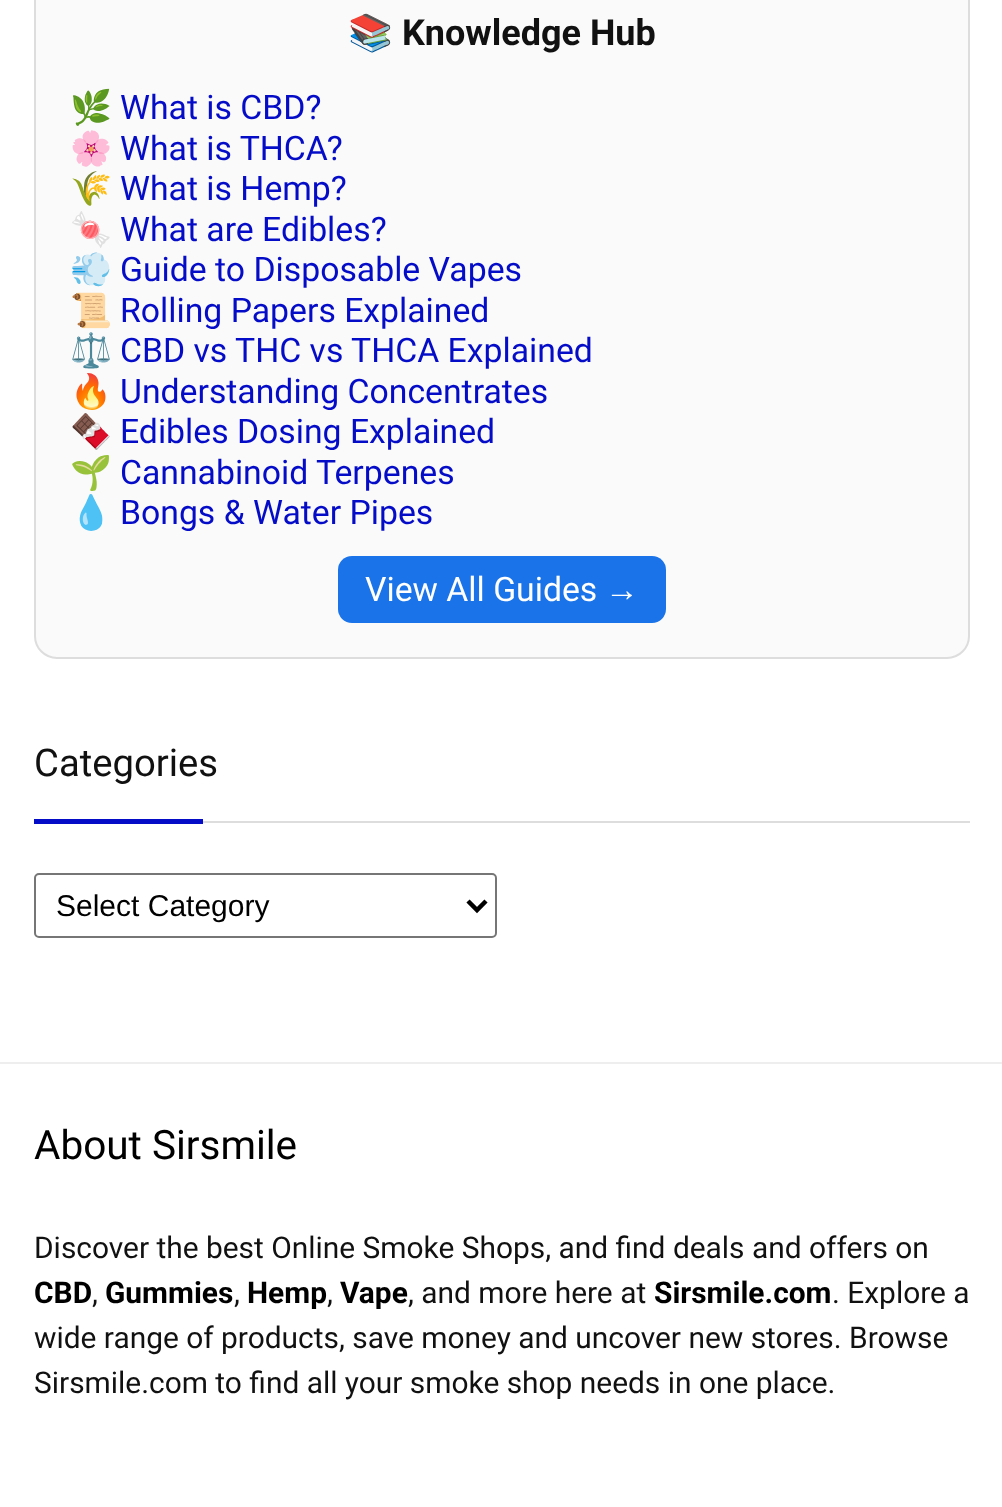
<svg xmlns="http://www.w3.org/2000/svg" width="1002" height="1507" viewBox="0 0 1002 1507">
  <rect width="100%" height="100%" fill="#fff"/>
  <rect x="35" y="-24" width="934" height="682" rx="22" fill="#fafafa" stroke="#ddd" stroke-width="2"/>
  <rect x="338" y="556" width="328" height="67" rx="14" fill="#1a73e8"/>
  <path d="M203 821h767v2H203z" fill="#ddd"/>
  <path d="M34 819h169v5H34z" fill="#050cc7"/>
  <rect x="35" y="874" width="461" height="63" rx="4" fill="none" stroke="#767676" stroke-width="2"/>
  <path d="M468 901L477 910L486 901" fill="none" stroke="#000" stroke-width="4.5"/>
  <path d="M0 1062h1002v2H0z" fill="#eee"/>
  <text x="348" y="45" font-family="Noto Color Emoji" font-size="36" font-weight="bold" fill="#111">📚</text>
  <text x="402" y="45" font-family="Roboto" font-size="36" font-weight="bold" fill="#111">Knowledge Hub</text>
  <text x="70" y="119" font-family="Noto Color Emoji" font-size="33.75" fill="#000">🌿</text>
  <text x="120" y="119" font-family="Roboto" font-size="33.75" fill="#050cc7">What is CBD?</text>
  <text x="70" y="160" font-family="Noto Color Emoji" font-size="33.75" fill="#000">🌸</text>
  <text x="120" y="160" font-family="Roboto" font-size="33.75" fill="#050cc7">What is THCA?</text>
  <text x="70" y="200" font-family="Noto Color Emoji" font-size="33.75" fill="#000">🌾</text>
  <text x="120" y="200" font-family="Roboto" font-size="33.75" fill="#050cc7">What is Hemp?</text>
  <text x="70" y="241" font-family="Noto Color Emoji" font-size="33.75" fill="#000">🍬</text>
  <text x="120" y="241" font-family="Roboto" font-size="33.75" fill="#050cc7">What are Edibles?</text>
  <text x="70" y="281" font-family="Noto Color Emoji" font-size="33.75" fill="#000">💨</text>
  <text x="120" y="281" font-family="Roboto" font-size="33.75" fill="#050cc7">Guide to Disposable Vapes</text>
  <text x="70" y="322" font-family="Noto Color Emoji" font-size="33.75" fill="#000">📜</text>
  <text x="120" y="322" font-family="Roboto" font-size="33.75" fill="#050cc7">Rolling Papers Explained</text>
  <text x="70" y="362" font-family="Noto Color Emoji" font-size="33.75" fill="#000">⚖️</text>
  <text x="120" y="362" font-family="Roboto" font-size="33.75" fill="#050cc7">CBD vs THC vs THCA Explained</text>
  <text x="70" y="403" font-family="Noto Color Emoji" font-size="33.75" fill="#000">🔥</text>
  <text x="120" y="403" font-family="Roboto" font-size="33.75" fill="#050cc7">Understanding Concentrates</text>
  <text x="70" y="443" font-family="Noto Color Emoji" font-size="33.75" fill="#000">🍫</text>
  <text x="120" y="443" font-family="Roboto" font-size="33.75" fill="#050cc7">Edibles Dosing Explained</text>
  <text x="70" y="484" font-family="Noto Color Emoji" font-size="33.75" fill="#000">🌱</text>
  <text x="120" y="484" font-family="Roboto" font-size="33.75" fill="#050cc7">Cannabinoid Terpenes</text>
  <text x="70" y="524" font-family="Noto Color Emoji" font-size="33.75" fill="#000">💧</text>
  <text x="120" y="524" font-family="Roboto" font-size="33.75" fill="#050cc7">Bongs &amp; Water Pipes</text>
  <text x="365" y="601" font-family="Roboto" font-size="33.75" fill="#fff">View All Guides</text>
  <text x="605" y="601" font-family="Liberation Sans" font-size="33.75" fill="#fff">→</text>
  <text x="34" y="776" font-family="Roboto" font-size="38.25" fill="#111">Categories</text>
  <text x="56" y="916" font-family="Liberation Sans" font-size="30" fill="#000">Select Category</text>
  <text x="34" y="1159" font-family="Roboto" font-size="40.5" fill="#000">About Sirsmile</text>
  <text x="34" y="1258" font-family="Roboto" font-size="29.9" fill="#111">Discover the best Online Smoke Shops, and find deals and offers on</text>
  <text x="34" y="1303" font-family="Roboto" font-size="29.9" font-weight="bold" fill="#000">CBD</text>
  <text x="92" y="1303" font-family="Roboto" font-size="29.9" fill="#111">,</text>
  <text x="105" y="1303" font-family="Roboto" font-size="29.9" font-weight="bold" fill="#000">Gummies</text>
  <text x="234" y="1303" font-family="Roboto" font-size="29.9" fill="#111">,</text>
  <text x="247" y="1303" font-family="Roboto" font-size="29.9" font-weight="bold" fill="#000">Hemp</text>
  <text x="327" y="1303" font-family="Roboto" font-size="29.9" fill="#111">,</text>
  <text x="340" y="1303" font-family="Roboto" font-size="29.9" font-weight="bold" fill="#000">Vape</text>
  <text x="408" y="1303" font-family="Roboto" font-size="29.9" fill="#111">, and more here at</text>
  <text x="654" y="1303" font-family="Roboto" font-size="29.9" font-weight="bold" fill="#000">Sirsmile.com</text>
  <g font-family="Roboto" font-size="29.9" fill="#111">
    <text x="832" y="1303">. Explore a</text>
    <text x="34" y="1348">wide range of products, save money and uncover new stores. Browse</text>
    <text x="34" y="1393">Sirsmile.com to find all your smoke shop needs in one place.</text>
  </g>
</svg>
